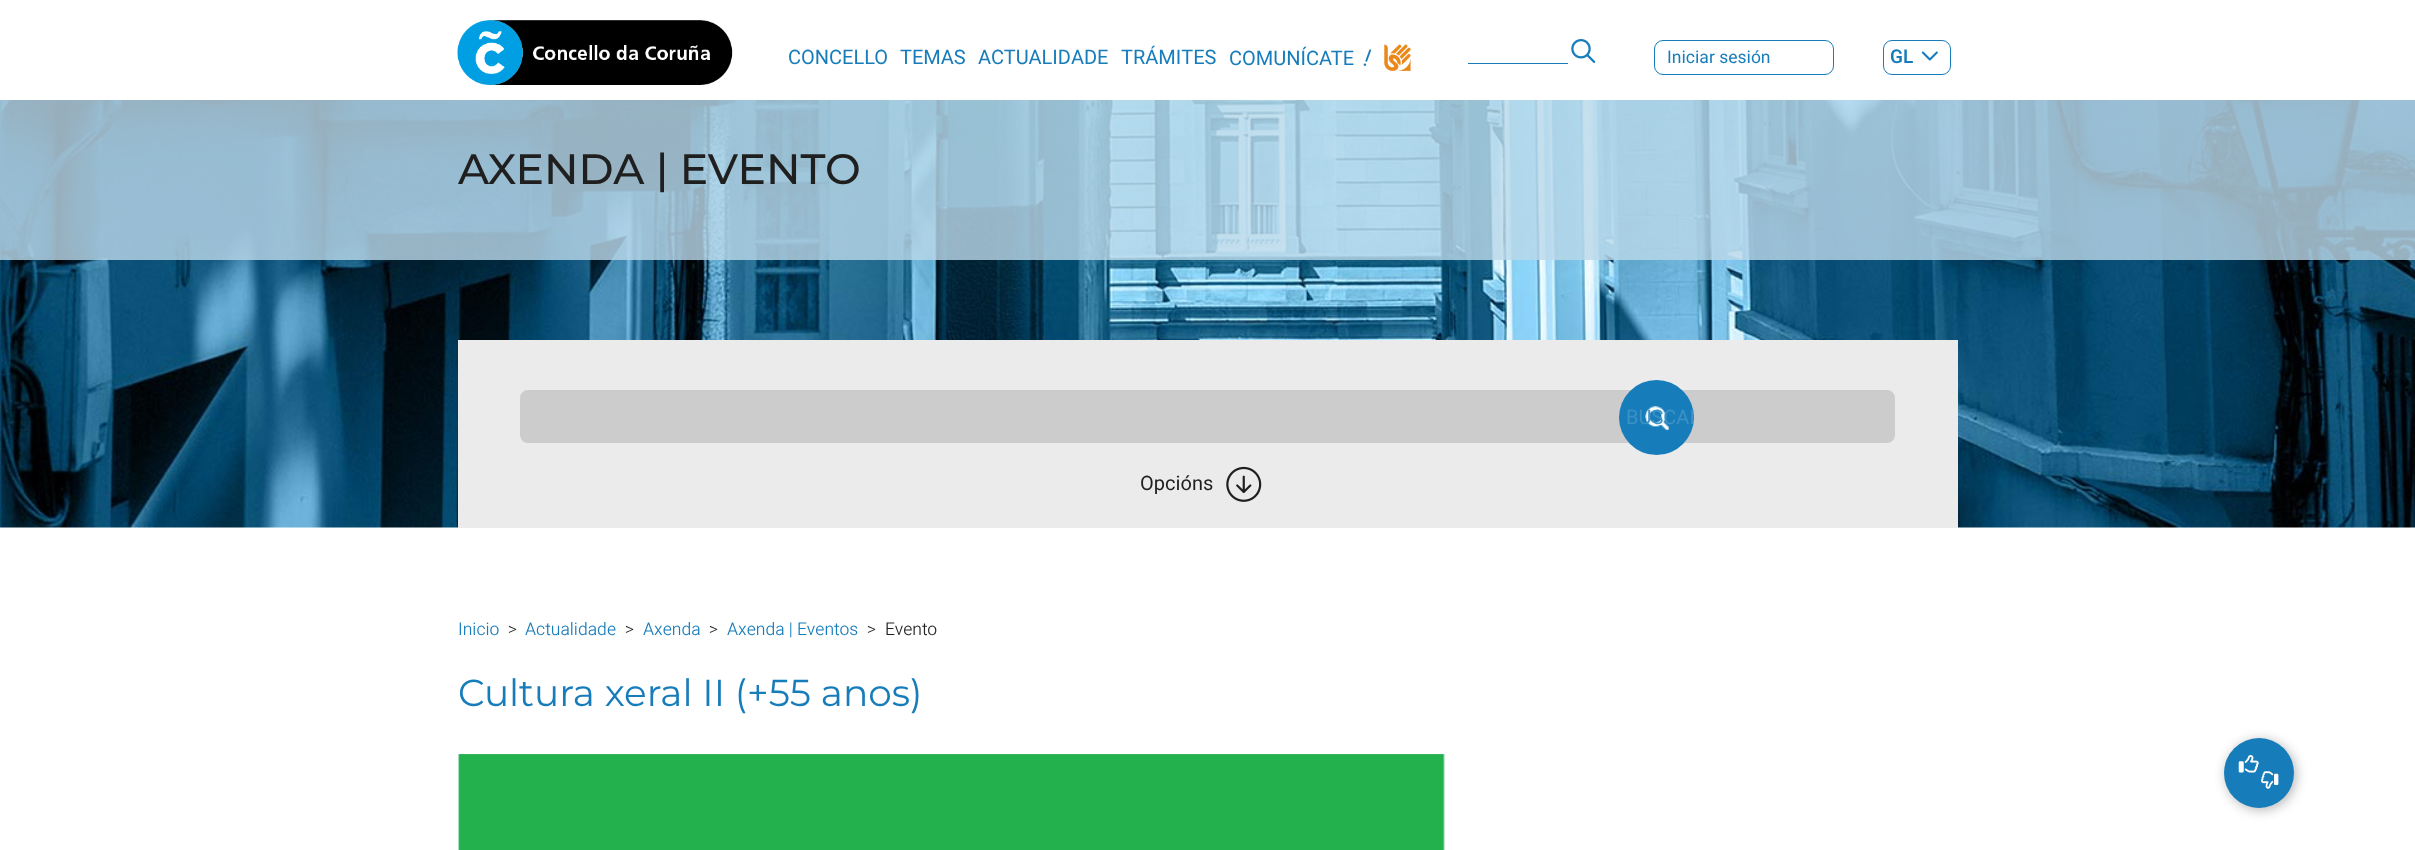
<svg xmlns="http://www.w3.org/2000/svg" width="2415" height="850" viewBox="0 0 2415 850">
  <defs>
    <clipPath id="clip1"><rect x="1619" y="380" width="75" height="75" rx="37.5"/></clipPath>
  </defs>
  <rect width="100%" height="100%" fill="#fff"/>
  <image x="457" y="20" width="276" height="65" href="img/1.png"/>
  <image x="1363" y="49" width="8" height="17" href="img/2.png"/>
  <image x="1384" y="44" width="27" height="27" href="img/3.png"/>
  <image x="1571" y="39" width="25" height="24" href="img/4.png"/>
  <path d="M1468 63h100v1H1468z" fill="#177cba"/>
  <rect x="1654.5" y="40.5" width="179" height="34" rx="8.5" fill="none" stroke="#177cba"/>
  <rect x="1883.5" y="40.5" width="67" height="34" rx="8.5" fill="none" stroke="#177cba"/>
  <image x="1921" y="51" width="17" height="10" href="img/5.png"/>
  <image x="0" y="100" width="2415" height="428" href="img/6.png"/>
  <path d="M0 100h2415v160H0z" fill="#ffffffbf"/>
  <path d="M0 100h2415v160H0z" fill="#177cba3d"/>
  <path d="M458 340h1500v188H458z" fill="#ebebeb"/>
  <rect x="521.5" y="391.5" width="1372" height="50" rx="6.5" fill="#ccc" stroke="#ccc" stroke-width="3"/>
  <circle cx="1656.5" cy="417.5" r="37.5" fill="#177cba"/>
  <image x="1645" y="406" width="24" height="24" href="img/7.png"/>
  <image x="1226" y="466" width="36" height="36" href="img/8.png"/>
  <image x="458" y="754" width="987" height="96" href="img/9.png"/>
  <rect x="2226" y="740" width="70" height="70" rx="35" fill="#0a0a0a4d" filter="blur(6px)"/>
  <circle cx="2259" cy="773" r="35" fill="#177cba"/>
  <image x="2238" y="755" width="21" height="18" href="img/10.png"/>
  <image x="2261" y="771" width="18" height="18" href="img/11.png"/>
  <g font-family="Heebo" font-size="20" fill="#177cba">
    <text x="788" y="64">CONCELLO</text>
    <text x="900" y="64">TEMAS</text>
    <text x="978" y="64">ACTUALIDADE</text>
    <text x="1121" y="64">TRÁMITES</text>
    <text x="1229" y="65">COMUNÍCATE</text>
  </g>
  <text x="1667" y="63" font-family="Heebo" font-size="17.5" fill="#177cba">Iniciar sesión</text>
  <text x="1890" y="63" font-family="Heebo" font-size="19" font-weight="600" fill="#177cba">GL</text>
  <text x="458" y="184" font-family="Montserrat" font-size="42.5" font-weight="500" fill="#1f1f1f">AXENDA | EVENTO</text>
  <g clip-path="url(#clip1)">
    <text x="1626" y="424" font-family="Heebo" font-size="20" fill="#3c91c5">BUSCAR</text>
  </g>
  <text x="1140" y="490" font-family="Heebo" font-size="20" fill="#1f1f1f">Opcións</text>
  <text x="458" y="635" font-family="Heebo" font-size="17.5" font-weight="300" fill="#177cba">Inicio</text>
  <text x="508" y="635" font-family="Heebo" font-size="17.5" font-weight="300" fill="#1f1f1f">&gt;</text>
  <text x="525" y="635" font-family="Heebo" font-size="17.5" font-weight="300" fill="#177cba">Actualidade</text>
  <text x="625" y="635" font-family="Heebo" font-size="17.5" font-weight="300" fill="#1f1f1f">&gt;</text>
  <text x="643" y="635" font-family="Heebo" font-size="17.5" font-weight="300" fill="#177cba">Axenda</text>
  <text x="709" y="635" font-family="Heebo" font-size="17.5" font-weight="300" fill="#1f1f1f">&gt;</text>
  <text x="727" y="635" font-family="Heebo" font-size="17.5" font-weight="300" fill="#177cba">Axenda | Eventos</text>
  <g font-family="Heebo" font-size="17.5" font-weight="300" fill="#1f1f1f">
    <text x="867" y="635">&gt;</text>
    <text x="885" y="635">Evento</text>
  </g>
  <text x="458" y="706" font-family="Montserrat" font-size="37.5" fill="#177cba">Cultura xeral II (+55 anos)</text>
</svg>
